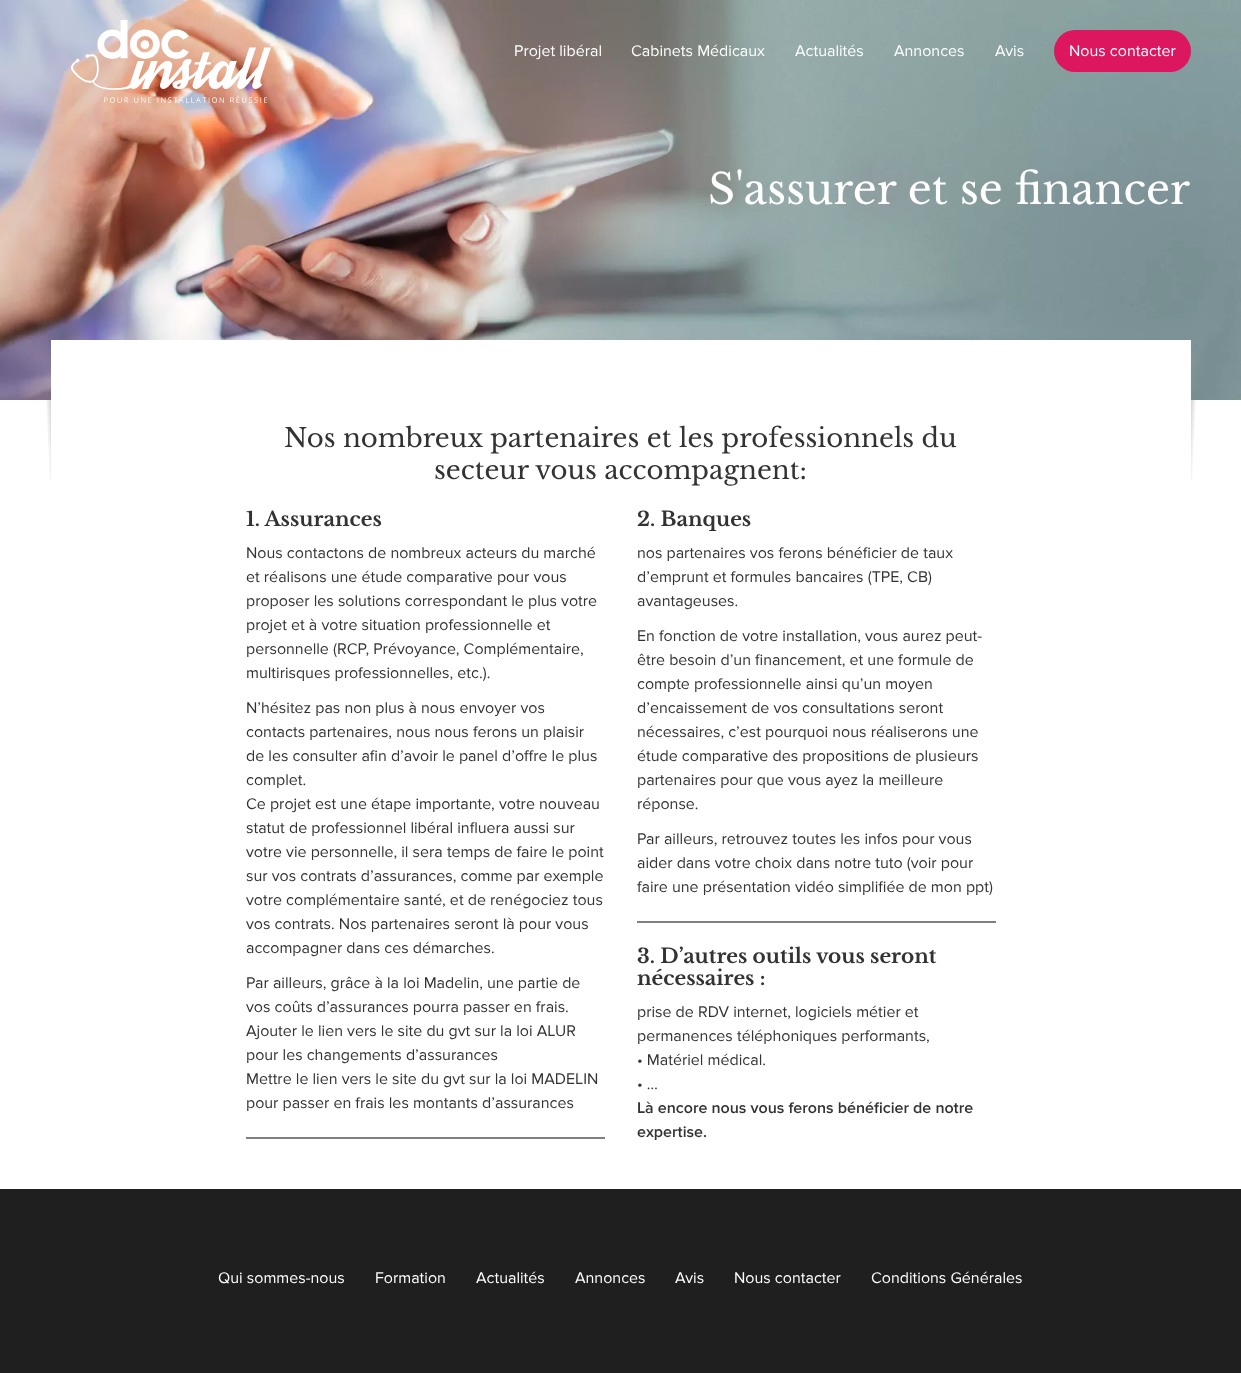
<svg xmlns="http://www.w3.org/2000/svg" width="1241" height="1373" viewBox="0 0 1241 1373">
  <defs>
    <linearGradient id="g1" gradientUnits="userSpaceOnUse" x1="39" y1="440" x2="81" y2="438"><stop offset="0.2" stop-color="#fff"/><stop offset="1" stop-color="#000"/></linearGradient>
    <linearGradient id="g2" gradientUnits="userSpaceOnUse" x1="1203" y1="440" x2="1161" y2="438"><stop offset="0.2" stop-color="#fff"/><stop offset="1" stop-color="#000"/></linearGradient>
  </defs>
  <rect width="100%" height="100%" fill="#fff"/>
  <image x="0" y="0" width="1241" height="400" href="img/2.png"/>
  <image x="71" y="20" width="200" height="83" href="img/1.png"/>
  <rect x="1054" y="30" width="137" height="42" rx="21" fill="#dc175f"/>
  <path d="M51 340h1140v60H51z" fill="#fff"/>
  <path d="M46 400h5v80H46z" fill="url(#g1)"/>
  <path d="M246 1137h359v2H246z" fill="#808080"/>
  <path d="M637 921h359v2H637z" fill="#808080"/>
  <path d="M1191 400h5v80H1191z" fill="url(#g2)"/>
  <path d="M0 1189h1241v184H0z" fill="#1f1f1f"/>
  <g font-family="Proxima Nova" font-size="16" fill="#fff">
    <text x="514" y="56">Projet libéral</text>
    <text x="631" y="56">Cabinets Médicaux</text>
    <text x="795" y="56">Actualités</text>
    <text x="894" y="56">Annonces</text>
    <text x="995" y="56">Avis</text>
    <text x="1069" y="56">Nous contacter</text>
  </g>
  <text x="708" y="204" font-family="Libre Baskerville" font-size="42" fill="#fff">S'assurer et se financer</text>
  <g font-family="Libre Baskerville" font-size="26" fill="#333">
    <text x="284" y="447">Nos nombreux partenaires et les professionnels du</text>
    <text x="434" y="479">secteur vous accompagnent:</text>
  </g>
  <text x="246" y="526" font-family="Libre Baskerville" font-size="20" font-weight="bold" fill="#333">1. Assurances</text>
  <g font-family="Proxima Nova" font-size="16" fill="#333">
    <text x="246" y="558">Nous contactons de nombreux acteurs du marché</text>
    <text x="246" y="582">et réalisons une étude comparative pour vous</text>
    <text x="246" y="606">proposer les solutions correspondant le plus votre</text>
    <text x="246" y="630">projet et à votre situation professionnelle et</text>
    <text x="246" y="654">personnelle (RCP, Prévoyance, Complémentaire,</text>
    <text x="246" y="678">multirisques professionnelles, etc.).</text>
    <text x="246" y="713">N’hésitez pas non plus à nous envoyer vos</text>
    <text x="246" y="737">contacts partenaires, nous nous ferons un plaisir</text>
    <text x="246" y="761">de les consulter afin d’avoir le panel d’offre le plus</text>
    <text x="246" y="785">complet.</text>
    <text x="246" y="809">Ce projet est une étape importante, votre nouveau</text>
    <text x="246" y="833">statut de professionnel libéral influera aussi sur</text>
    <text x="246" y="857">votre vie personnelle, il sera temps de faire le point</text>
    <text x="246" y="881">sur vos contrats d’assurances, comme par exemple</text>
    <text x="246" y="905">votre complémentaire santé, et de renégociez tous</text>
    <text x="246" y="929">vos contrats. Nos partenaires seront là pour vous</text>
    <text x="246" y="953">accompagner dans ces démarches.</text>
    <text x="246" y="988">Par ailleurs, grâce à la loi Madelin, une partie de</text>
    <text x="246" y="1012">vos coûts d’assurances pourra passer en frais.</text>
    <text x="246" y="1036">Ajouter le lien vers le site du gvt sur la loi ALUR</text>
    <text x="246" y="1060">pour les changements d’assurances</text>
    <text x="246" y="1084">Mettre le lien vers le site du gvt sur la loi MADELIN</text>
    <text x="246" y="1108">pour passer en frais les montants d’assurances</text>
  </g>
  <text x="637" y="526" font-family="Libre Baskerville" font-size="20" font-weight="bold" fill="#333">2. Banques</text>
  <g font-family="Proxima Nova" font-size="16" fill="#333">
    <text x="637" y="558">nos partenaires vos ferons bénéficier de taux</text>
    <text x="637" y="582">d’emprunt et formules bancaires (TPE, CB)</text>
    <text x="637" y="606">avantageuses.</text>
    <text x="637" y="641">En fonction de votre installation, vous aurez peut-</text>
    <text x="637" y="665">être besoin d’un financement, et une formule de</text>
    <text x="637" y="689">compte professionnelle ainsi qu’un moyen</text>
    <text x="637" y="713">d’encaissement de vos consultations seront</text>
    <text x="637" y="737">nécessaires, c’est pourquoi nous réaliserons une</text>
    <text x="637" y="761">étude comparative des propositions de plusieurs</text>
    <text x="637" y="785">partenaires pour que vous ayez la meilleure</text>
    <text x="637" y="809">réponse.</text>
    <text x="637" y="844">Par ailleurs, retrouvez toutes les infos pour vous</text>
    <text x="637" y="868">aider dans votre choix dans notre tuto (voir pour</text>
    <text x="637" y="892">faire une présentation vidéo simplifiée de mon ppt)</text>
  </g>
  <g font-family="Libre Baskerville" font-size="20" font-weight="bold" fill="#333">
    <text x="637" y="963">3. D’autres outils vous seront</text>
    <text x="637" y="985">nécessaires :</text>
  </g>
  <g font-family="Proxima Nova" font-size="16" fill="#333">
    <text x="637" y="1017">prise de RDV internet, logiciels métier et</text>
    <text x="637" y="1041">permanences téléphoniques performants,</text>
    <text x="637" y="1065">• Matériel médical.</text>
    <text x="637" y="1089">• …</text>
  </g>
  <g font-family="Proxima Nova" font-size="16" font-weight="600" fill="#333">
    <text x="637" y="1113">Là encore nous vous ferons bénéficier de notre</text>
    <text x="637" y="1137">expertise.</text>
  </g>
  <g font-family="Proxima Nova" font-size="16" fill="#fff">
    <text x="218" y="1283">Qui sommes-nous</text>
    <text x="375" y="1283">Formation</text>
    <text x="476" y="1283">Actualités</text>
    <text x="575" y="1283">Annonces</text>
    <text x="675" y="1283">Avis</text>
    <text x="734" y="1283">Nous contacter</text>
    <text x="871" y="1283">Conditions Générales</text>
  </g>
</svg>
